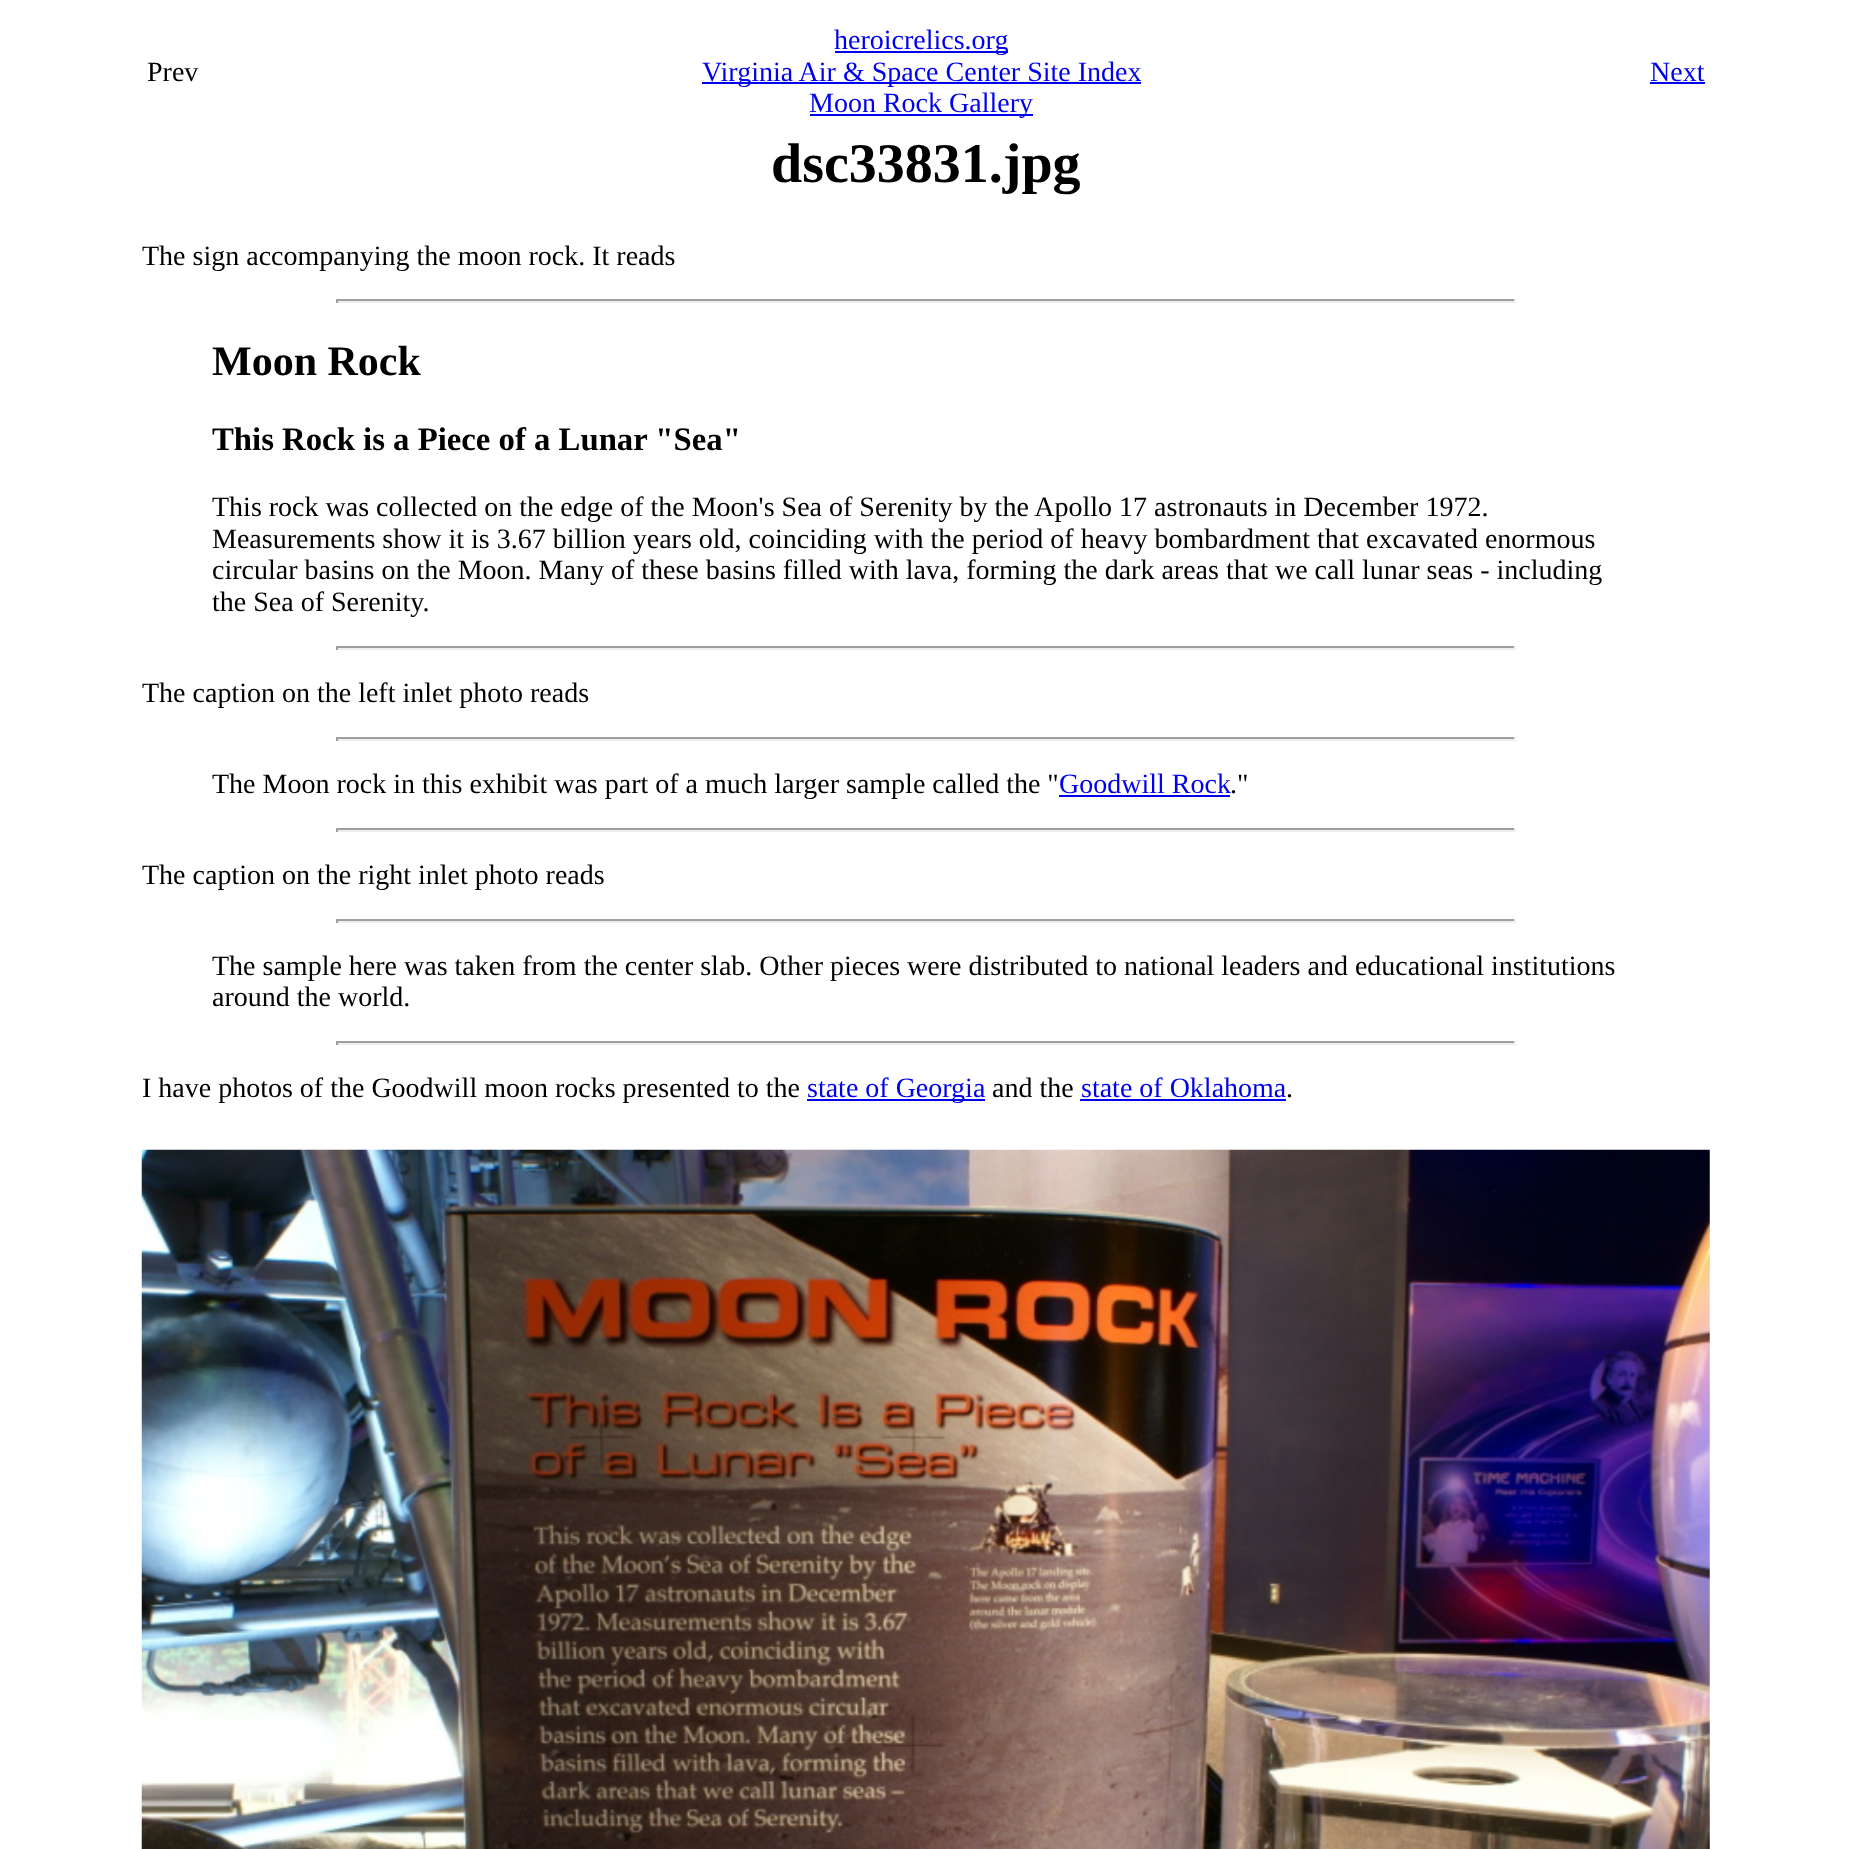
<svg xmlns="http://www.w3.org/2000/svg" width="1851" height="1849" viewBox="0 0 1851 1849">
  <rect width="100%" height="100%" fill="#fff"/>
  <path d="M835 51h173v2H835z" fill="#00e"/>
  <path d="M702 82h439v2H702z" fill="#00e"/>
  <path d="M810 114h223v2H810z" fill="#00e"/>
  <path d="M1650 82h55v2H1650z" fill="#00e"/>
  <path d="M336 299h1180v2H336z" fill="#9f9f9f"/>
  <path d="M1514 299h2v4H1514z" fill="#eee"/>
  <path d="M336 301h1180v2H336z" fill="#eee"/>
  <path d="M336 299h2v4H336z" fill="#9f9f9f"/>
  <path d="M336 646h1180v2H336z" fill="#9f9f9f"/>
  <path d="M1514 646h2v4H1514z" fill="#eee"/>
  <path d="M336 648h1180v2H336z" fill="#eee"/>
  <path d="M336 646h2v4H336z" fill="#9f9f9f"/>
  <path d="M336 737h1180v2H336z" fill="#9f9f9f"/>
  <path d="M1514 737h2v4H1514z" fill="#eee"/>
  <path d="M336 739h1180v2H336z" fill="#eee"/>
  <path d="M336 737h2v4H336z" fill="#9f9f9f"/>
  <path d="M1059 795h171v2H1059z" fill="#00e"/>
  <path d="M336 828h1180v2H336z" fill="#9f9f9f"/>
  <path d="M1514 828h2v4H1514z" fill="#eee"/>
  <path d="M336 830h1180v2H336z" fill="#eee"/>
  <path d="M336 828h2v4H336z" fill="#9f9f9f"/>
  <path d="M336 919h1180v2H336z" fill="#9f9f9f"/>
  <path d="M1514 919h2v4H1514z" fill="#eee"/>
  <path d="M336 921h1180v2H336z" fill="#eee"/>
  <path d="M336 919h2v4H336z" fill="#9f9f9f"/>
  <path d="M336 1041h1180v2H336z" fill="#9f9f9f"/>
  <path d="M1514 1041h2v4H1514z" fill="#eee"/>
  <path d="M336 1043h1180v2H336z" fill="#eee"/>
  <path d="M336 1041h2v4H336z" fill="#9f9f9f"/>
  <path d="M807 1099h178v2H807z" fill="#00e"/>
  <path d="M1080 1099h206v2H1080z" fill="#00e"/>
  <image x="141" y="1149" width="1569" height="700" href="img/1.png"/>
  <text x="147" y="81" font-family="Liberation Serif" font-size="28" fill="#000">Prev</text>
  <g font-family="Liberation Serif" font-size="28" fill="#00e">
    <text x="834" y="49">heroicrelics.org</text>
    <text x="702" y="81">Virginia Air &amp; Space Center Site Index</text>
    <text x="809" y="112">Moon Rock Gallery</text>
    <text x="1650" y="81">Next</text>
  </g>
  <text x="771" y="182" font-family="Liberation Serif" font-size="56" font-weight="bold" fill="#000">dsc33831.jpg</text>
  <text x="142" y="265" font-family="Liberation Serif" font-size="28" fill="#000">The sign accompanying the moon rock. It reads</text>
  <text x="212" y="375" font-family="Liberation Serif" font-size="42" font-weight="bold" fill="#000">Moon Rock</text>
  <text x="212" y="450" font-family="Liberation Serif" font-size="32.75" font-weight="bold" fill="#000">This Rock is a Piece of a Lunar "Sea"</text>
  <g font-family="Liberation Serif" font-size="28" fill="#000">
    <text x="212" y="516">This rock was collected on the edge of the Moon's Sea of Serenity by the Apollo 17 astronauts in December 1972.</text>
    <text x="212" y="548">Measurements show it is 3.67 billion years old, coinciding with the period of heavy bombardment that excavated enormous</text>
    <text x="212" y="579">circular basins on the Moon. Many of these basins filled with lava, forming the dark areas that we call lunar seas - including</text>
    <text x="212" y="611">the Sea of Serenity.</text>
    <text x="142" y="702">The caption on the left inlet photo reads</text>
    <text x="212" y="793">The Moon rock in this exhibit was part of a much larger sample called the "</text>
  </g>
  <text x="1059" y="793" font-family="Liberation Serif" font-size="28" fill="#00e">Goodwill Rock</text>
  <g font-family="Liberation Serif" font-size="28" fill="#000">
    <text x="1230" y="793">."</text>
    <text x="142" y="884">The caption on the right inlet photo reads</text>
    <text x="212" y="975">The sample here was taken from the center slab. Other pieces were distributed to national leaders and educational institutions</text>
    <text x="212" y="1006">around the world.</text>
    <text x="142" y="1097">I have photos of the Goodwill moon rocks presented to the</text>
  </g>
  <text x="807" y="1097" font-family="Liberation Serif" font-size="28" fill="#00e">state of Georgia</text>
  <text x="992" y="1097" font-family="Liberation Serif" font-size="28" fill="#000">and the</text>
  <text x="1081" y="1097" font-family="Liberation Serif" font-size="28" fill="#00e">state of Oklahoma</text>
  <text x="1286" y="1097" font-family="Liberation Serif" font-size="28" fill="#000">.</text>
</svg>
